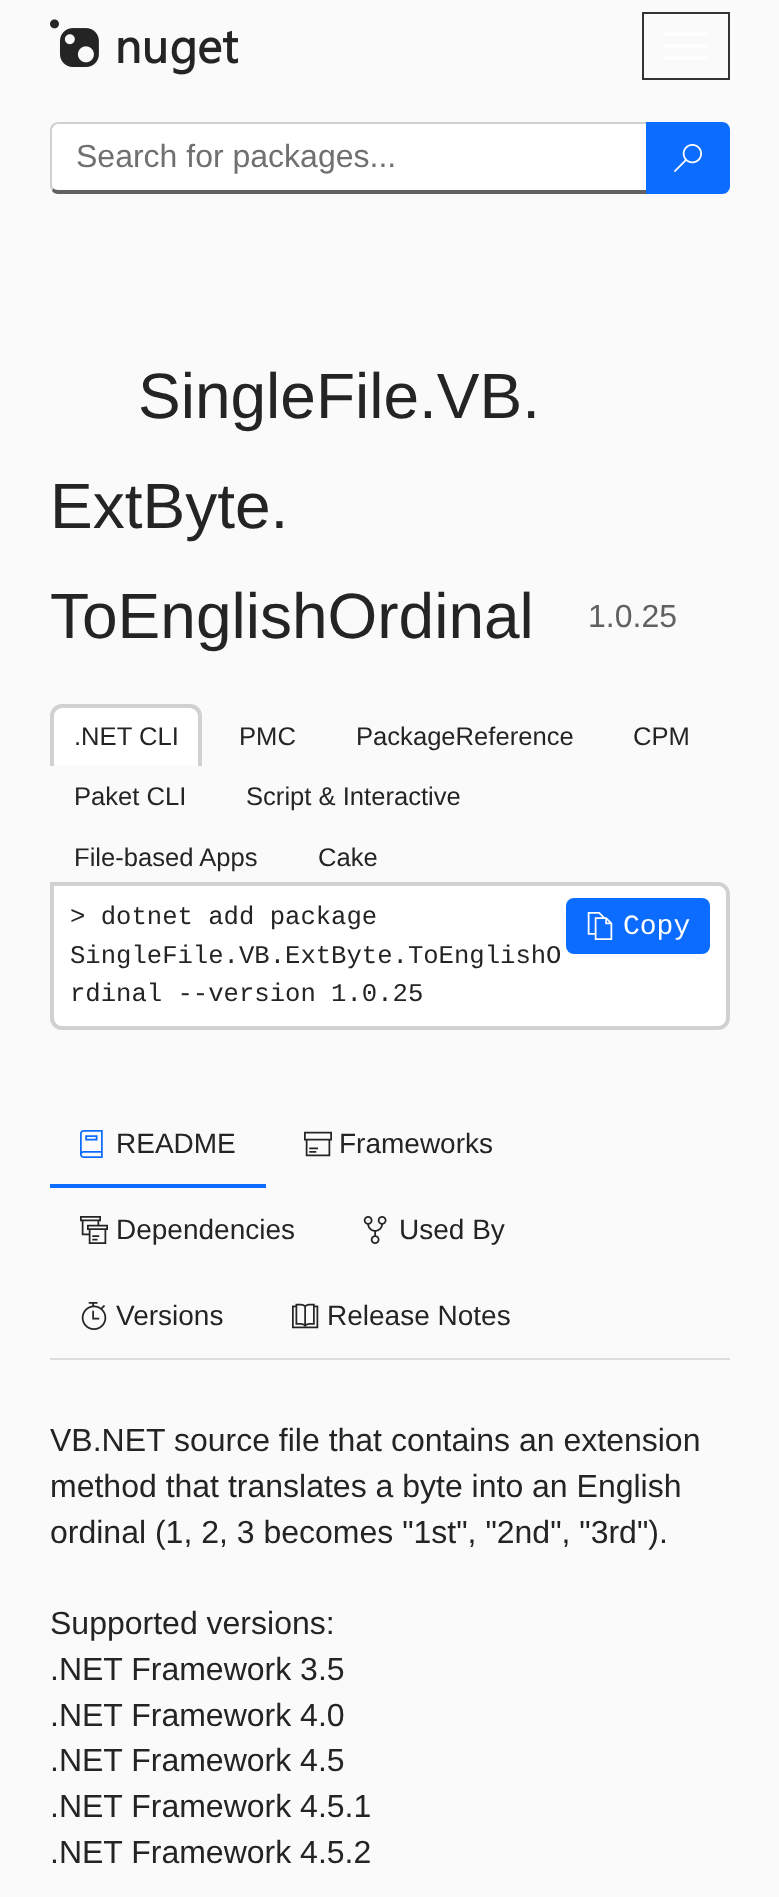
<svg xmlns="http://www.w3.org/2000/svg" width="779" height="1897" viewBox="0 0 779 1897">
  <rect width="100%" height="100%" fill="#fafafa"/>
  <image x="50" y="19" width="188" height="56" href="img/1.png"/>
  <path d="M643 13h86v66H643z" fill="none" stroke="#333" stroke-width="2"/>
  <rect x="664" y="32" width="44" height="4" rx="2" fill="#fff"/>
  <rect x="664" y="44" width="44" height="4" rx="2" fill="#fff"/>
  <rect x="664" y="56" width="44" height="4" rx="2" fill="#fff"/>
  <path d="M58 124H646V190H58C55 190 52 188 52 186V130C52 127 55 124 58 124Z" fill="#fff"/>
  <path d="M58 122C56 122 54 123 52 124L54 126C55 125 56 124 58 124H646L648 122Z" fill="#d1d1d1"/>
  <path d="M648 194L646 190H58C56 190 54 189 53 188L52 191C53 193 56 194 58 194Z" fill="#616161"/>
  <path d="M50 130V186C50 188 51 189 52 191L53 188L52 186V129L54 126L52 124C51 126 50 128 50 130Z" fill="#d1d1d1"/>
  <path d="M646 122H722C726.5 122 730 125.5 730 130V186C730 190.5 726.5 194 722 194H646Z" fill="#0b6cff"/>
  <image x="674" y="144" width="28" height="28" href="img/2.png"/>
  <path d="M62 704H190C196.5 704 202 709.5 202 716V766H50V716C50 709.5 55.5 704 62 704Z" fill="#fff"/>
  <path d="M62 704H190C197 704 202 709 202 716V766H50V716C50 709 55 704 62 704ZM62 708H190C194 708 198 712 198 716V766H54V716C54 712 58 708 62 708Z" fill="#d1d1d1" fill-rule="evenodd"/>
  <path d="M52 884H718C723.5 884 728 888.5 728 894V1018C728 1023.5 723.5 1028 718 1028H62C56.5 1028 52 1023.5 52 1018Z" fill="#fff" stroke="#d1d1d1" stroke-width="4"/>
  <rect x="566" y="898" width="144" height="56" rx="8" fill="#0b6cff"/>
  <image x="587" y="912" width="26" height="28" href="img/3.png"/>
  <path d="M50 1358h680v2H50z" fill="#ddd"/>
  <path d="M50 1184h216v4H50z" fill="#0b6cff"/>
  <image x="80" y="1130" width="23" height="28" href="img/4.png"/>
  <image x="304" y="1131" width="28" height="26" href="img/5.png"/>
  <image x="80" y="1216" width="28" height="28" href="img/6.png"/>
  <image x="363" y="1216" width="24" height="28" href="img/7.png"/>
  <image x="81" y="1302" width="26" height="28" href="img/8.png"/>
  <image x="292" y="1303" width="27" height="26" href="img/9.png"/>
  <text x="76" y="167" font-family="Liberation Sans" font-size="32" fill="#707070">Search for packages...</text>
  <g font-family="Liberation Sans" font-size="64" fill="#242424">
    <text x="138" y="418">SingleFile.VB.</text>
    <text x="50" y="528">ExtByte.</text>
    <text x="50" y="638">ToEnglishOrdinal</text>
  </g>
  <text x="588" y="627" font-family="Liberation Sans" font-size="32" fill="#616161">1.0.25</text>
  <g font-family="Liberation Sans" font-size="25.6" fill="#242424">
    <text x="74" y="745">.NET CLI</text>
    <text x="239" y="745">PMC</text>
    <text x="356" y="745">PackageReference</text>
    <text x="633" y="745">CPM</text>
    <text x="74" y="805">Paket CLI</text>
    <text x="246" y="805">Script &amp; Interactive</text>
    <text x="74" y="866">File-based Apps</text>
    <text x="318" y="866">Cake</text>
  </g>
  <g font-family="Liberation Mono" font-size="25.6" fill="#242424">
    <text x="70" y="924">&gt; dotnet add package</text>
    <text x="70" y="963">SingleFile.VB.ExtByte.ToEnglishO</text>
    <text x="70" y="1001">rdinal --version 1.0.25</text>
  </g>
  <text x="623" y="934" font-family="Liberation Mono" font-size="28" fill="#fff">Copy</text>
  <g font-family="Liberation Sans" font-size="28" fill="#242424">
    <text x="116" y="1153">README</text>
    <text x="339" y="1153">Frameworks</text>
    <text x="116" y="1239">Dependencies</text>
    <text x="399" y="1239">Used By</text>
    <text x="116" y="1325">Versions</text>
    <text x="327" y="1325">Release Notes</text>
  </g>
  <g font-family="Liberation Sans" font-size="32" fill="#242424">
    <text x="50" y="1451">VB.NET source file that contains an extension</text>
    <text x="50" y="1497">method that translates a byte into an English</text>
    <text x="50" y="1543">ordinal (1, 2, 3 becomes "1st", "2nd", "3rd").</text>
    <text x="50" y="1634">Supported versions:</text>
    <text x="50" y="1680">.NET Framework 3.5</text>
    <text x="50" y="1726">.NET Framework 4.0</text>
    <text x="50" y="1771">.NET Framework 4.5</text>
    <text x="50" y="1817">.NET Framework 4.5.1</text>
    <text x="50" y="1863">.NET Framework 4.5.2</text>
  </g>
</svg>
